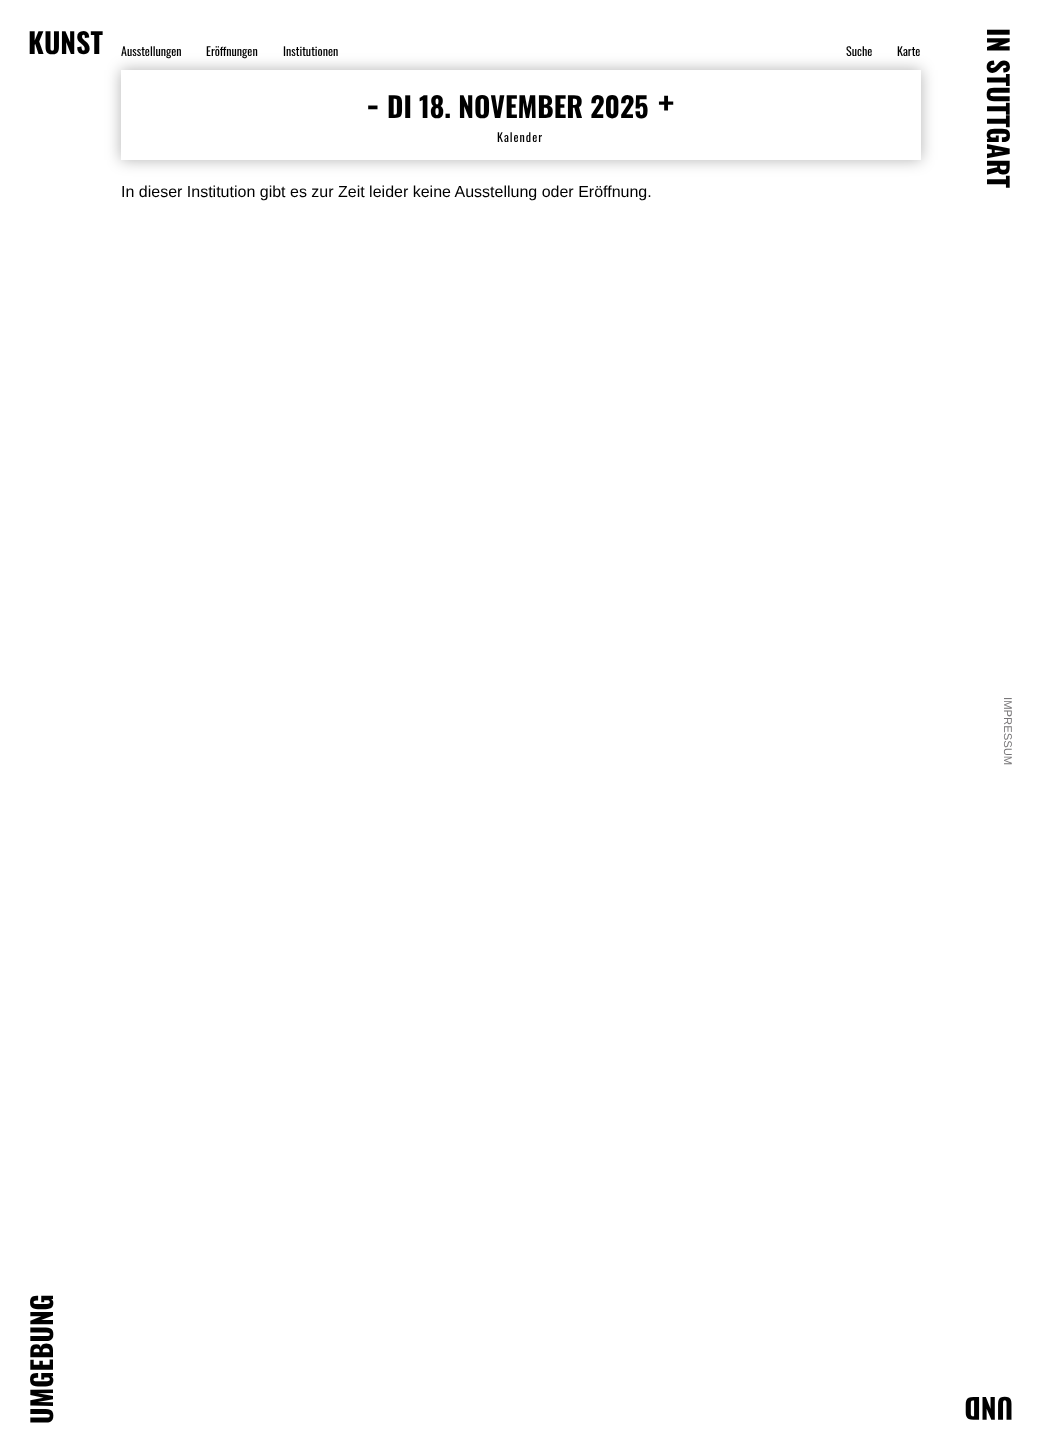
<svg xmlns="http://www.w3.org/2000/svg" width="1041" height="1451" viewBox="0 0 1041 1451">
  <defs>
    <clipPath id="clip1"><path d="M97 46H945V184H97ZM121 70H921V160H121Z" clip-rule="evenodd"/></clipPath>
  </defs>
  <rect width="100%" height="100%" fill="#fff"/>
  <g clip-path="url(#clip1)">
    <path d="M121 70h800v90H121z" fill="#0000004d" filter="blur(7.5px)"/>
  </g>
  <g font-family="Oswald" font-size="28" font-weight="bold" fill="#000">
    <text x="28" y="54">KUNST</text>
    <text x="987" y="28" transform="rotate(90 987 28)">IN STUTTGART</text>
    <text x="53" y="1424" transform="rotate(-90 53 1424)">UMGEBUNG</text>
    <text x="1013" y="1397" transform="rotate(180 1013 1397)">UND</text>
  </g>
  <g font-family="Oswald" font-size="12" fill="#000">
    <text x="121" y="56">Ausstellungen</text>
    <text x="206" y="56">Eröffnungen</text>
    <text x="283" y="56">Institutionen</text>
    <text x="846" y="56">Suche</text>
    <text x="897" y="56">Karte</text>
  </g>
  <text x="367" y="118" font-family="Oswald" font-size="36" font-weight="bold" fill="#000">-</text>
  <text x="387" y="118" font-family="Oswald" font-size="28" font-weight="bold" fill="#000">DI 18. NOVEMBER 2025</text>
  <text x="658" y="118" font-family="Oswald" font-size="36" font-weight="bold" fill="#000">+</text>
  <text x="497" y="142" font-family="Oswald" font-size="12" letter-spacing="1" fill="#000">Kalender</text>
  <text x="121" y="197" font-family="Liberation Sans" font-size="16" fill="#000">In dieser Institution gibt es zur Zeit leider keine Ausstellung oder Eröffnung.</text>
  <text x="1004" y="697" transform="rotate(90 1004 697)" font-family="Liberation Sans" font-size="11.25" fill="#767476">IMPRESSUM</text>
</svg>
